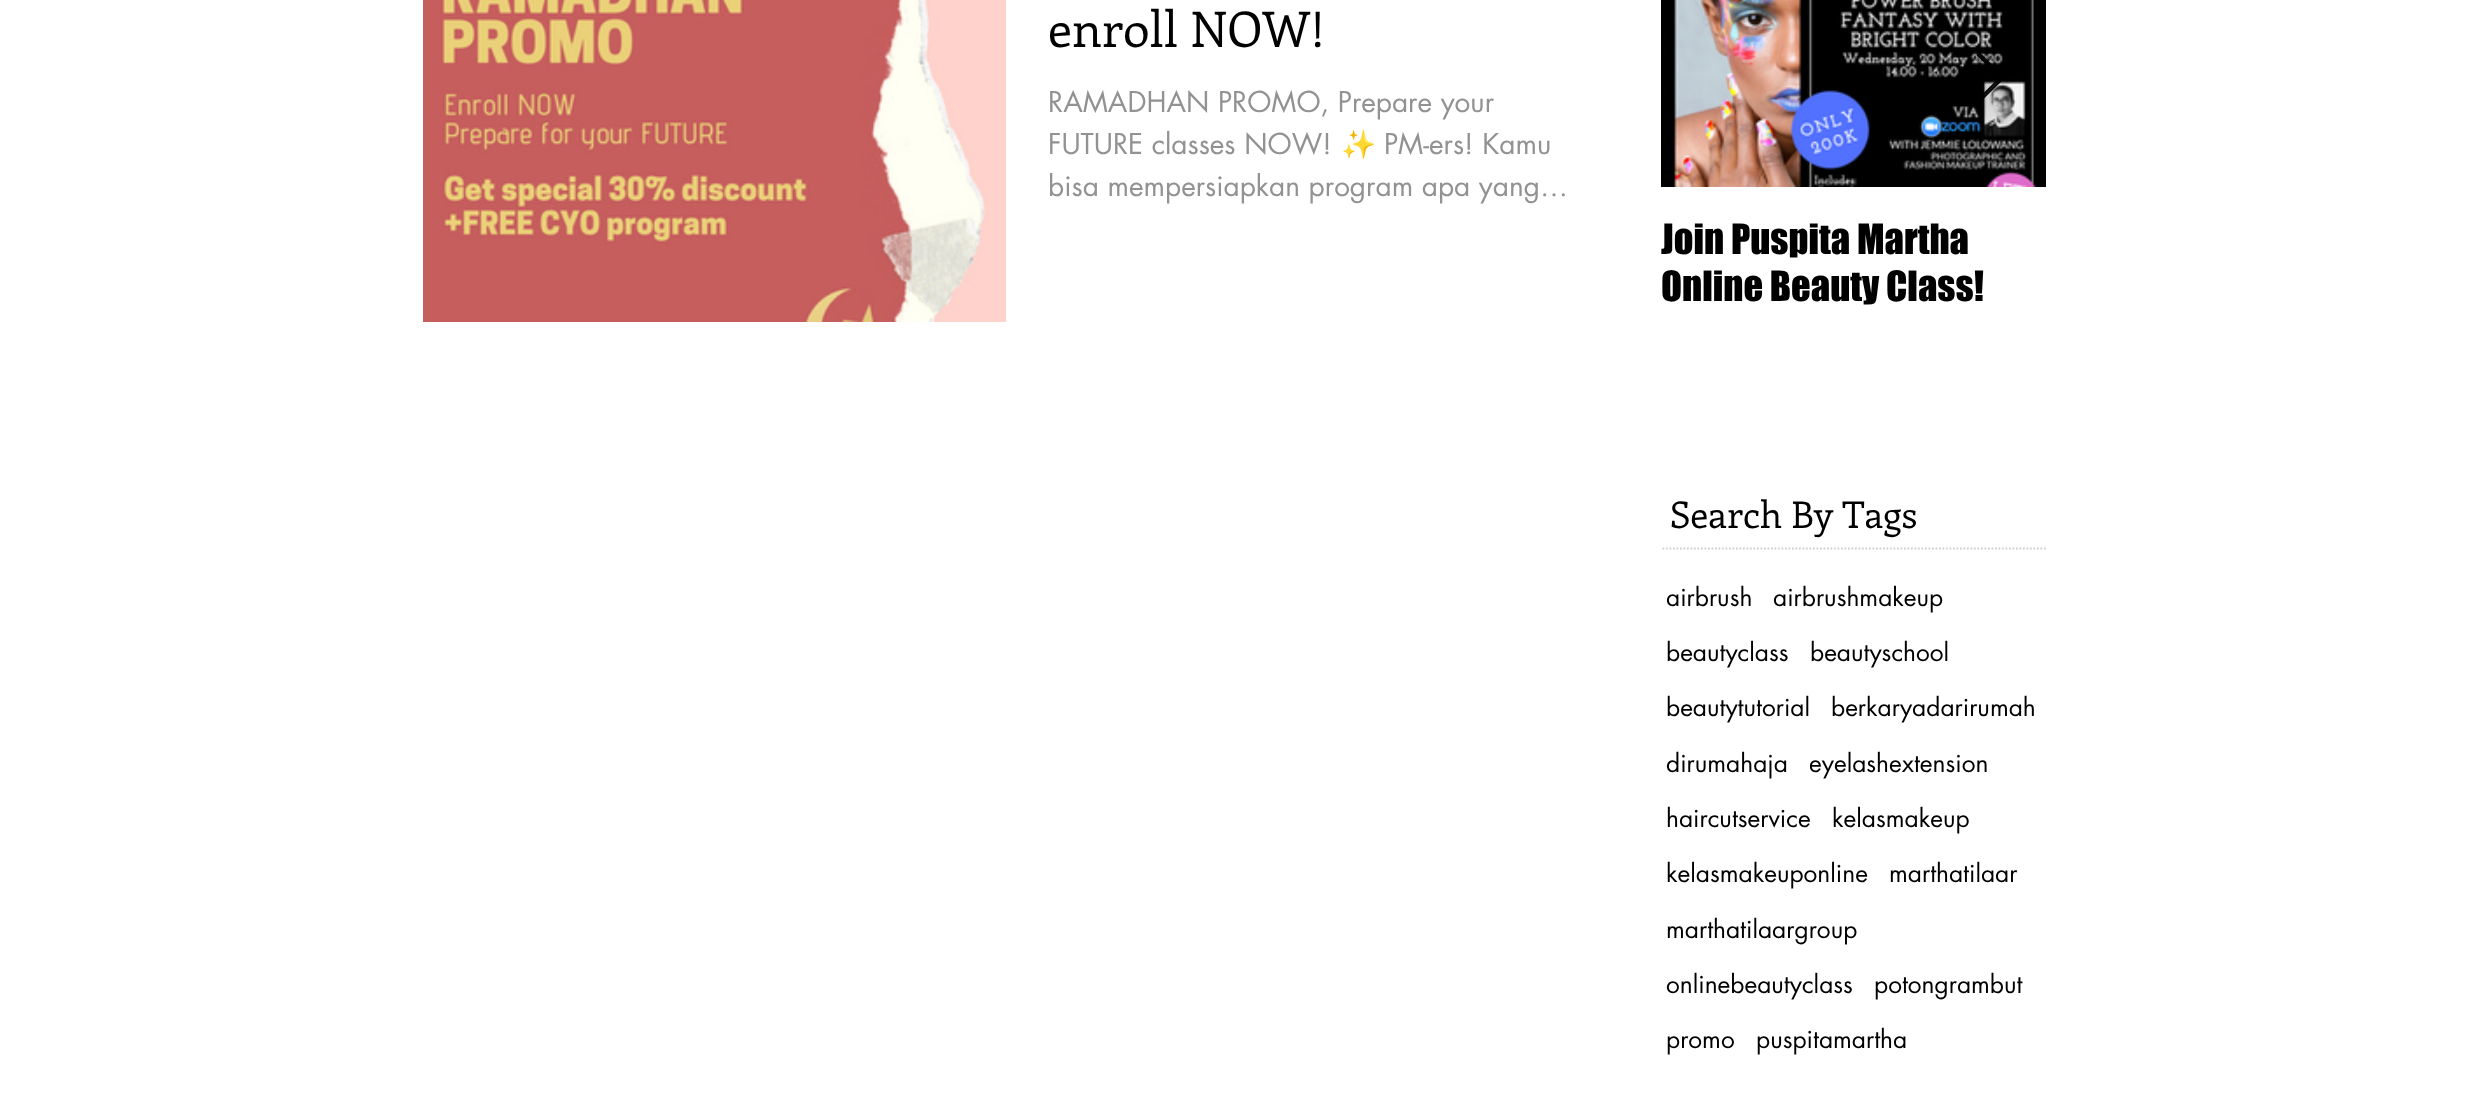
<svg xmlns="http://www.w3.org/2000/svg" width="2485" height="1098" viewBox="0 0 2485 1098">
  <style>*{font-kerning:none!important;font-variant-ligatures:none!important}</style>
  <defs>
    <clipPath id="clip1"><path d="M1974 53h32v54H1974z"/></clipPath>
    <clipPath id="clip2"><path d="M1810 746h178v35H1810z"/></clipPath>
  </defs>
  <rect width="100%" height="100%" fill="#fff"/>
  <image x="423" y="0" width="583" height="322" href="img/1.png"/>
  <image x="1661" y="0" width="385" height="187" href="img/2.png"/>
  <path d="M1977 55L1979 53L2004 78L1979 102L1977 100L2000 78Z" fill="#000000e6"/>
  <g clip-path="url(#clip1)">
    <path d="M1977.5 55L1979.5 53L2004.5 77.5L1979.5 102L1977.5 100L2000 77.5Z" fill="none" stroke="#000000e6" stroke-width="1.4"/>
  </g>
  <path d="M1662.5 548.5H2047.5" fill="none" stroke="#cfcfcf" stroke-width="1.8" stroke-dasharray="1.75 1.75"/>
  <text x="1048" y="47" font-family="Enriqueta" font-size="49" fill="#000">enroll NOW!</text>
  <g font-family="futura" font-size="28" fill="#929292">
    <text x="1048" y="112">RAMADHAN PROMO, Prepare your</text>
    <text x="1048" y="154">FUTURE classes NOW!</text>
  </g>
  <text x="1341" y="154" font-family="Noto Color Emoji" font-size="28" fill="#929292">✨</text>
  <g font-family="futura" font-size="28" fill="#929292">
    <text x="1384" y="154">PM-ers! Kamu</text>
    <text x="1048" y="196">bisa mempersiapkan program apa yang…</text>
  </g>
  <g font-family="'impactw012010'" font-size="38.5" fill="#000">
    <text x="1661" y="254">Join Puspita Martha</text>
    <text x="1661" y="301">Online Beauty Class!</text>
  </g>
  <text x="1670" y="528" font-family="Enriqueta" font-size="36.75" fill="#000">Search By Tags</text>
  <g font-family="futura" font-size="24.5" fill="#000">
    <text x="1666" y="606">airbrush</text>
    <text x="1773" y="606">airbrushmakeup</text>
    <text x="1666" y="661">beautyclass</text>
    <text x="1810" y="661">beautyschool</text>
    <text x="1666" y="716">beautytutorial</text>
    <text x="1831" y="716">berkaryadarirumah</text>
    <text x="1666" y="772">dirumahaja</text>
  </g>
  <g clip-path="url(#clip2)">
    <text x="1809" y="772" font-family="futura" font-size="24.5" fill="#000">eyelashextension</text>
  </g>
  <g font-family="futura" font-size="24.5" fill="#000">
    <text x="1666" y="827">haircutservice</text>
    <text x="1832" y="827">kelasmakeup</text>
    <text x="1666" y="882">kelasmakeuponline</text>
    <text x="1889" y="882">marthatilaar</text>
    <text x="1666" y="938">marthatilaargroup</text>
    <text x="1666" y="993">onlinebeautyclass</text>
    <text x="1874" y="993">potongrambut</text>
    <text x="1666" y="1048">promo</text>
    <text x="1756" y="1048">puspitamartha</text>
  </g>
</svg>
